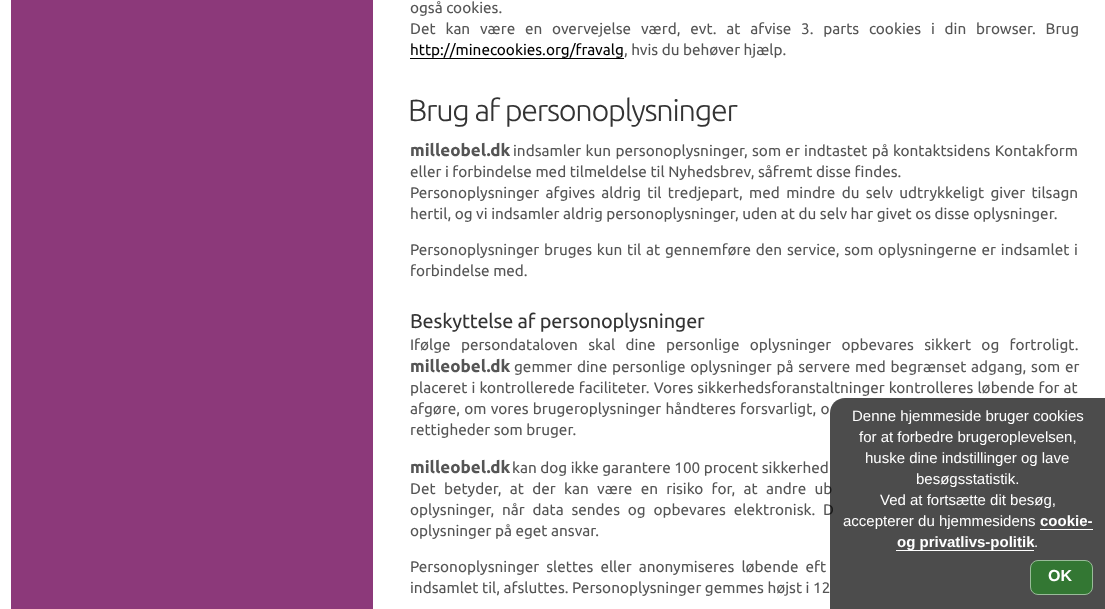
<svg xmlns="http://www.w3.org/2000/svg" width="1105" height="609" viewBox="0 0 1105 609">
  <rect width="100%" height="100%" fill="#fff"/>
  <path d="M11 0h362v609H11z" fill="#8c397a"/>
  <path d="M410 58h214v1H410z" fill="#000"/>
  <g font-family="Ubuntu" font-size="15.3" fill="#555">
    <text x="410" y="13">også cookies.</text>
    <text x="410" y="34" word-spacing="6.25">Det kan være en overvejelse værd, evt. at afvise 3. parts cookies i din browser. Brug</text>
  </g>
  <text x="410" y="55" font-family="Ubuntu" font-size="15.3" fill="#000">http://minecookies.org/fravalg</text>
  <text x="624" y="55" font-family="Ubuntu" font-size="15.3" fill="#555">, hvis du behøver hjælp.</text>
  <text x="408" y="121" font-family="Ubuntu" font-size="30.6" font-weight="300" letter-spacing="-1.25" fill="#333">Brug af personoplysninger</text>
  <text x="410" y="156" font-family="Ubuntu" font-size="17" font-weight="bold" fill="#555">milleobel.dk</text>
  <g font-family="Ubuntu" font-size="15.3" fill="#555">
    <text x="513" y="156" word-spacing="0.75">indsamler kun personoplysninger, som er indtastet på kontaktsidens Kontakform</text>
    <text x="410" y="177">eller i forbindelse med tilmeldelse til Nyhedsbrev, såfremt disse findes.</text>
    <text x="410" y="198" word-spacing="2.75">Personoplysninger afgives aldrig til tredjepart, med mindre du selv udtrykkeligt giver tilsagn</text>
    <text x="410" y="219">hertil, og vi indsamler aldrig personoplysninger, uden at du selv har givet os disse oplysninger.</text>
    <text x="410" y="255" word-spacing="1.25">Personoplysninger bruges kun til at gennemføre den service, som oplysningerne er indsamlet i</text>
    <text x="410" y="276">forbindelse med.</text>
  </g>
  <text x="410" y="328" font-family="Ubuntu" font-size="19.9" letter-spacing="-0.2" fill="#333">Beskyttelse af personoplysninger</text>
  <text x="410" y="350" word-spacing="6.75" font-family="Ubuntu" font-size="15.3" fill="#555">Ifølge persondataloven skal dine personlige oplysninger opbevares sikkert og fortroligt.</text>
  <text x="410" y="372" font-family="Ubuntu" font-size="17" font-weight="bold" fill="#555">milleobel.dk</text>
  <g font-family="Ubuntu" font-size="15.3" fill="#555">
    <text x="514" y="372" word-spacing="1.25">gemmer dine personlige oplysninger på servere med begrænset adgang, som er</text>
    <text x="410" y="393" word-spacing="0.5">placeret i kontrollerede faciliteter. Vores sikkerhedsforanstaltninger kontrolleres løbende for at</text>
    <text x="410" y="414" word-spacing="0.75">afgøre, om vores brugeroplysninger håndteres forsvarligt, o</text>
    <text x="410" y="435">rettigheder som bruger.</text>
  </g>
  <text x="410" y="473" font-family="Ubuntu" font-size="17" font-weight="bold" fill="#555">milleobel.dk</text>
  <g font-family="Ubuntu" font-size="15.3" fill="#555">
    <text x="512" y="473">kan dog ikke garantere 100 procent sikkerhed</text>
    <text x="410" y="494" word-spacing="4.75">Det betyder, at der kan være en risiko for, at andre ub</text>
    <text x="410" y="515" word-spacing="4.25">oplysninger, når data sendes og opbevares elektronisk. D</text>
    <text x="410" y="536">oplysninger på eget ansvar.</text>
    <text x="410" y="572" word-spacing="3.5">Personoplysninger slettes eller anonymiseres løbende eft</text>
    <text x="410" y="593">indsamlet til, afsluttes. Personoplysninger gemmes højst i 12</text>
  </g>
  <path d="M845 398H1105V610H830V413C830 404.5 836.5 398 845 398Z" fill="#000000b3"/>
  <g font-family="Liberation Sans" font-size="15" fill="#fff">
    <text x="852" y="421">Denne hjemmeside bruger cookies</text>
    <text x="859" y="442">for at forbedre brugeroplevelsen,</text>
    <text x="865" y="463">huske dine indstillinger og lave</text>
    <text x="916" y="484">besøgsstatistik.</text>
    <text x="880" y="505">Ved at fortsætte dit besøg,</text>
    <text x="843" y="526">accepterer du hjemmesidens</text>
  </g>
  <text x="1040" y="526" font-family="Liberation Sans" font-size="15" font-weight="bold" fill="#fff">cookie-</text>
  <path d="M1040 529h53v1H1040z" fill="#fff"/>
  <path d="M896 550h138v1H896z" fill="#fff"/>
  <text x="897" y="547" font-family="Liberation Sans" font-size="15" font-weight="bold" fill="#fff">og privatlivs-politik</text>
  <text x="1034" y="547" font-family="Liberation Sans" font-size="15" fill="#fff">.</text>
  <rect x="1030.5" y="560.5" width="62" height="34" rx="7.5" fill="#373" stroke="#9b9"/>
  <text x="1048" y="581" font-family="Liberation Sans" font-size="16" font-weight="bold" fill="#fff">OK</text>
</svg>
